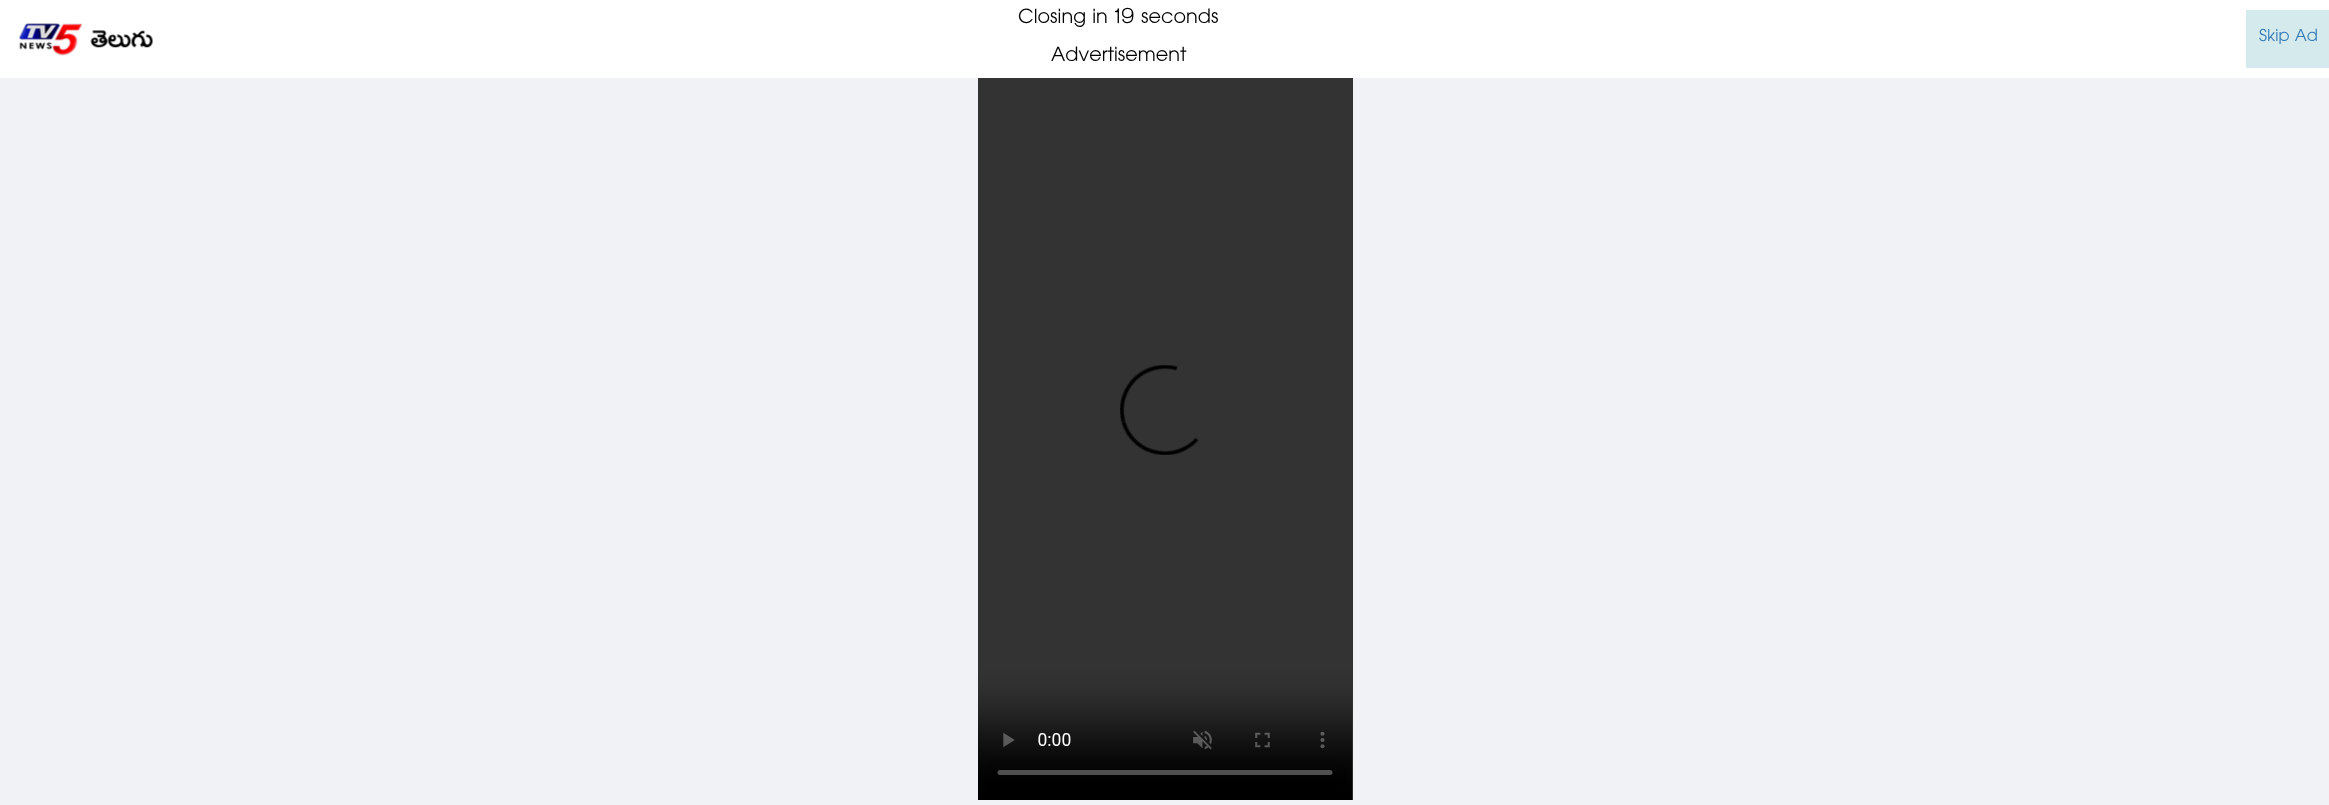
<svg xmlns="http://www.w3.org/2000/svg" width="2329" height="805" viewBox="0 0 2329 805">
  <rect width="100%" height="100%" fill="#f0f2f5"/>
  <path d="M0 0h2329v78H0z" fill="#fff"/>
  <image x="19" y="23" width="134" height="33" href="img/1.png"/>
  <path d="M2246 10h83v58H2246z" fill="#d4eaed"/>
  <image x="978" y="78" width="375" height="722" href="img/2.png"/>
  <g font-family="Mallanna" font-size="26" fill="#000">
    <text x="1018" y="23">Closing in 19 seconds</text>
    <text x="1051" y="61">Advertisement</text>
  </g>
  <text x="2259" y="41" font-family="Mallanna" font-size="22" fill="#337ab7">Skip Ad</text>
</svg>
